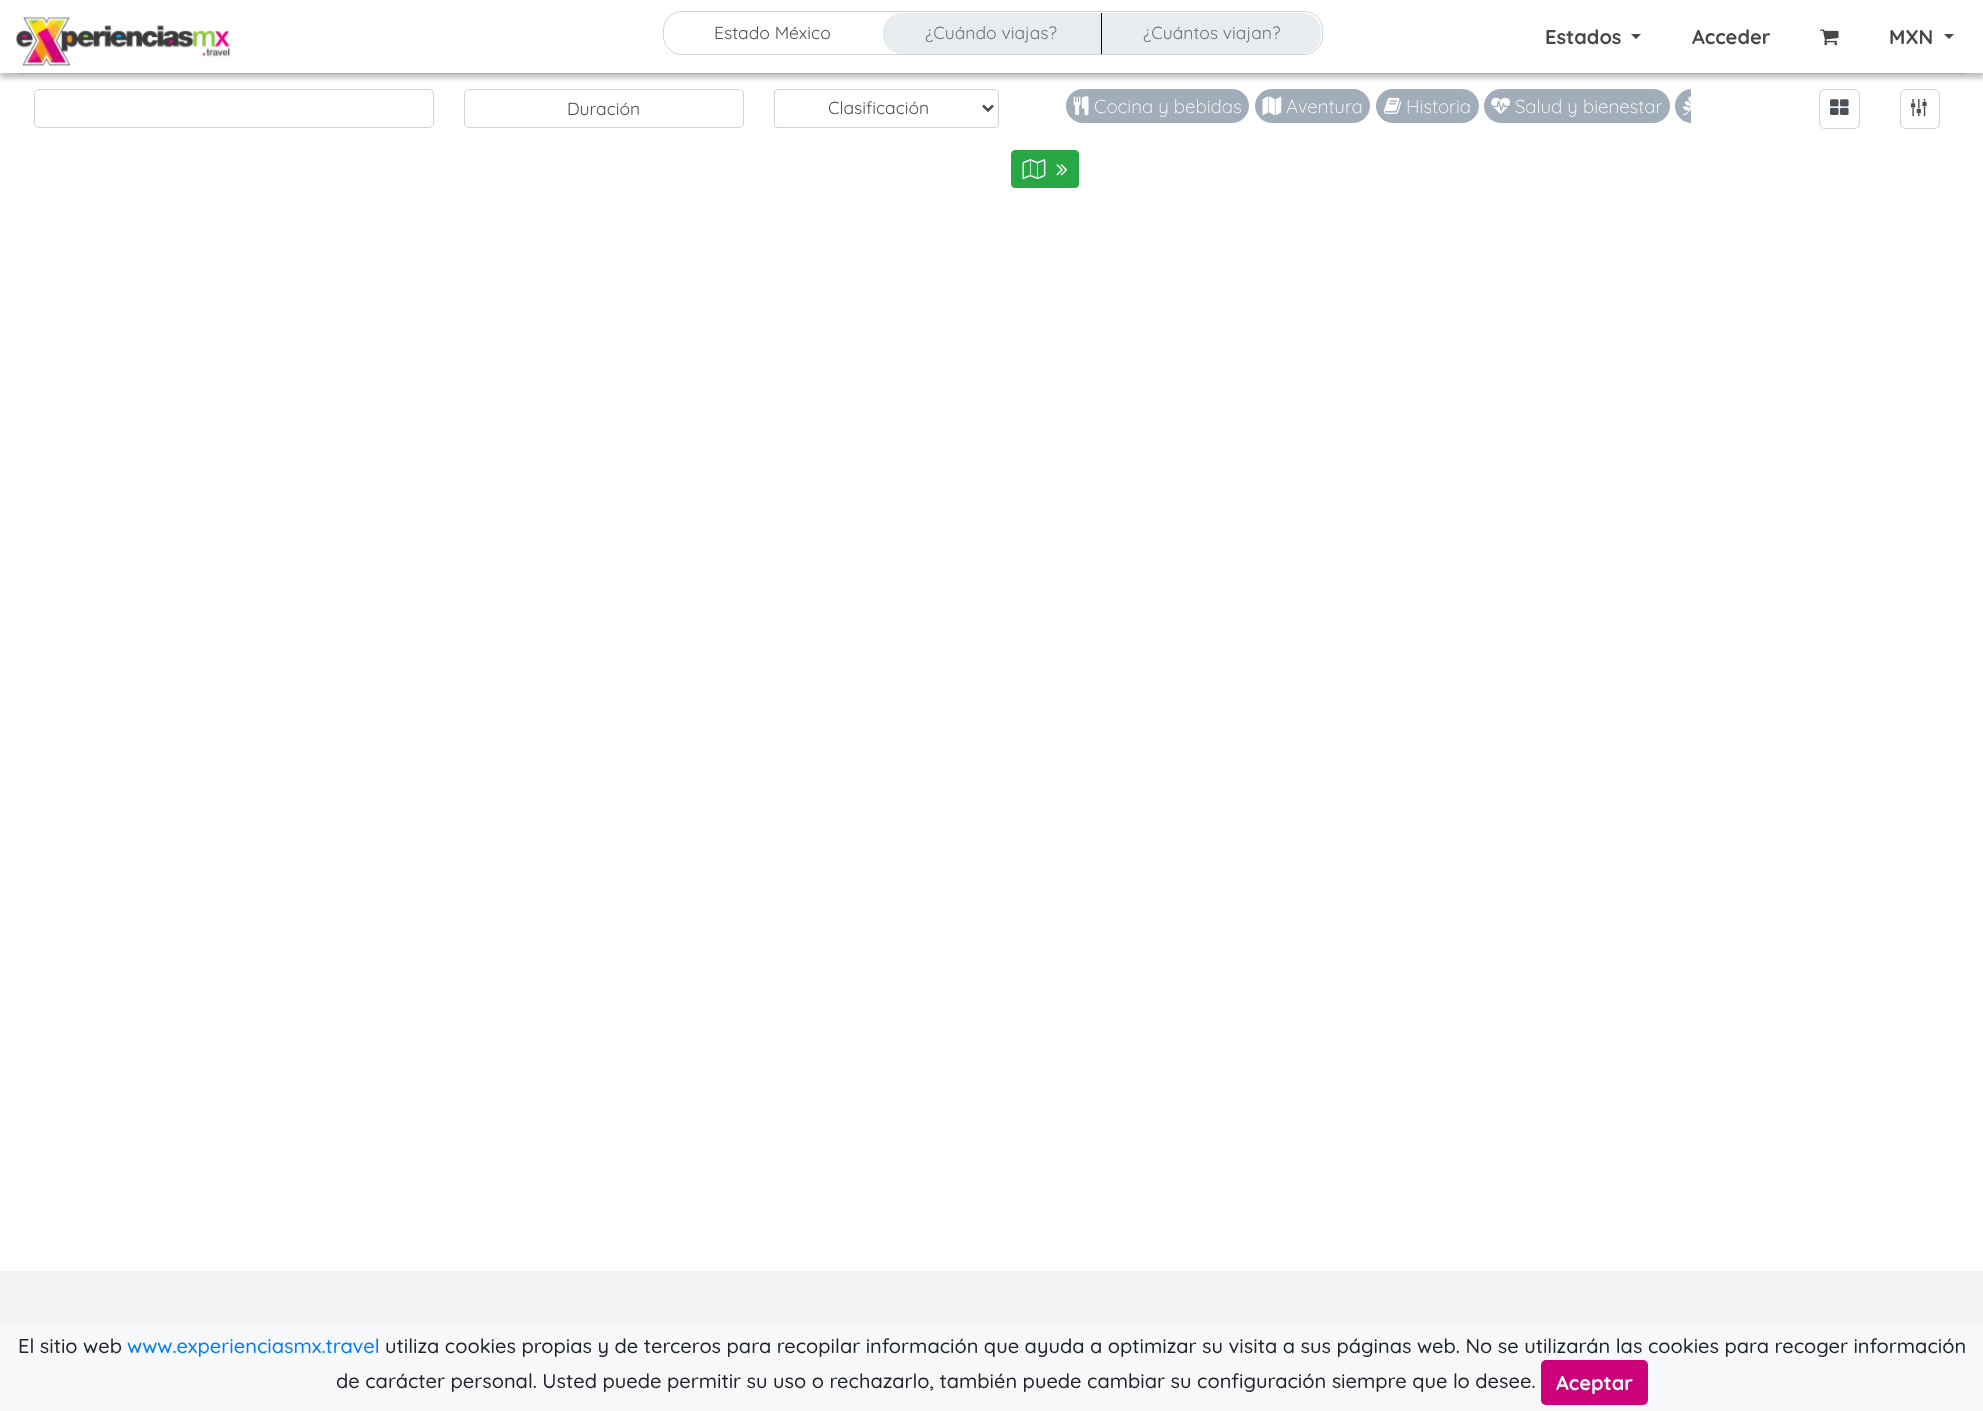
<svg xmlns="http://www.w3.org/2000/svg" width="1983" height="1411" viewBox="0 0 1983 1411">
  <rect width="100%" height="100%" fill="#fff"/>
  <path d="M19 73h1946v1H19z" fill="#dee2e6"/>
  <path d="M0 5h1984v73H0z" fill="#00000040" filter="blur(2.5px)"/>
  <path d="M0 1h1983v72H0z" fill="#fff"/>
  <image x="15" y="16" width="215" height="50" href="img/1.png"/>
  <rect x="663.5" y="11.5" width="659" height="43" rx="18.5" fill="none" stroke="#ced4da"/>
  <path d="M902 13H1101V54H902C891.5 54 883 45.5 883 35V32C883 21.5 891.5 13 902 13Z" fill="#e9ecef"/>
  <path d="M1101 13H1302C1312.5 13 1321 21.5 1321 32V35C1321 45.5 1312.5 54 1302 54H1101Z" fill="#e9ecef"/>
  <path d="M1101 13h1v41H1101z" fill="#000"/>
  <path d="M1631 34H1641L1636 39Z" fill="#484848"/>
  <image x="1820" y="29" width="19" height="17" href="img/2.png"/>
  <path d="M1944 34H1954L1949 39Z" fill="#484848"/>
  <rect x="1900.5" y="89.5" width="39" height="39" rx="5.5" fill="none" stroke="#ced4da"/>
  <image x="1910" y="99" width="17" height="18" href="img/3.png"/>
  <rect x="34.5" y="89.5" width="399" height="38" rx="4.5" fill="none" stroke="#ced4da"/>
  <rect x="464.5" y="89.5" width="279" height="38" rx="4.5" fill="none" stroke="#ced4da"/>
  <rect x="774.5" y="89.5" width="224" height="38" rx="3.5" fill="none" stroke="#ced4da"/>
  <path d="M983 105.5L988 110.5L993 105.5" fill="none" stroke="#495057" stroke-width="2.5"/>
  <rect x="1066" y="89" width="183" height="34" rx="17" fill="#a1adb8"/>
  <image x="1073" y="96" width="16" height="20" href="img/4.png"/>
  <rect x="1255" y="89" width="115" height="34" rx="17" fill="#a1adb8"/>
  <image x="1262" y="96" width="20" height="20" href="img/5.png"/>
  <rect x="1376" y="89" width="103" height="34" rx="17" fill="#a1adb8"/>
  <image x="1383" y="97" width="19" height="17" href="img/6.png"/>
  <rect x="1484" y="89" width="186" height="34" rx="17" fill="#a1adb8"/>
  <image x="1491" y="97" width="19" height="17" href="img/7.png"/>
  <path d="M1692 89H1691V123H1692C1682.5 123 1675 115.5 1675 106C1675 96.5 1682.5 89 1692 89Z" fill="#a1adb8"/>
  <image x="1682" y="96" width="9" height="20" href="img/8.png"/>
  <rect x="1819.5" y="89.5" width="40" height="39" rx="5.5" fill="none" stroke="#ced4da"/>
  <image x="1830" y="99" width="19" height="16" href="img/9.png"/>
  <rect x="1011.5" y="150.5" width="67" height="37" rx="3.5" fill="#28a745" stroke="#28a745"/>
  <image x="1022" y="159" width="24" height="21" href="img/10.png"/>
  <image x="1056" y="164" width="12" height="12" href="img/11.png"/>
  <path d="M0 1271h1983v53H0z" fill="#f4f4f2"/>
  <path d="M0 1324h1983v87H0z" fill="#f7f8f9"/>
  <rect x="1541" y="1360" width="107" height="45" rx="5" fill="#cc017a"/>
  <text x="714" y="39" font-family="Quicksand" font-size="17.5" fill="#495057">Estado México</text>
  <g font-family="Quicksand" font-size="17.5" fill="#6c757d">
    <text x="925" y="39">¿Cuándo viajas?</text>
    <text x="1143" y="39">¿Cuántos viajan?</text>
  </g>
  <g font-family="Quicksand" font-size="20" font-weight="bold" fill="#484848">
    <text x="1545" y="44">Estados</text>
    <text x="1692" y="44">Acceder</text>
    <text x="1889" y="44">MXN</text>
  </g>
  <g font-family="Quicksand" font-size="17.5" fill="#495057">
    <text x="567" y="115">Duración</text>
    <text x="828" y="114">Clasificación</text>
  </g>
  <g font-family="Quicksand" font-size="18.75" font-weight="300" fill="#fff">
    <text x="1094" y="113">Cocina y bebidas</text>
    <text x="1286" y="113">Aventura</text>
    <text x="1406" y="113">Historia</text>
    <text x="1515" y="113">Salud y bienestar</text>
  </g>
  <text x="18" y="1353" font-family="Quicksand" font-size="20" font-weight="500" fill="#212529">El sitio web</text>
  <text x="127" y="1353" font-family="Quicksand" font-size="20" font-weight="500" fill="#007bff">www.experienciasmx.travel</text>
  <g font-family="Quicksand" font-size="20" font-weight="500" fill="#212529">
    <text x="385" y="1353">utiliza cookies propias y de terceros para recopilar información que ayuda a optimizar su visita a sus páginas web. No se utilizarán las cookies para recoger información</text>
    <text x="336" y="1388">de carácter personal. Usted puede permitir su uso o rechazarlo, también puede cambiar su configuración siempre que lo desee.</text>
  </g>
  <text x="1556" y="1390" font-family="Quicksand" font-size="20" font-weight="bold" fill="#fff">Aceptar</text>
</svg>
